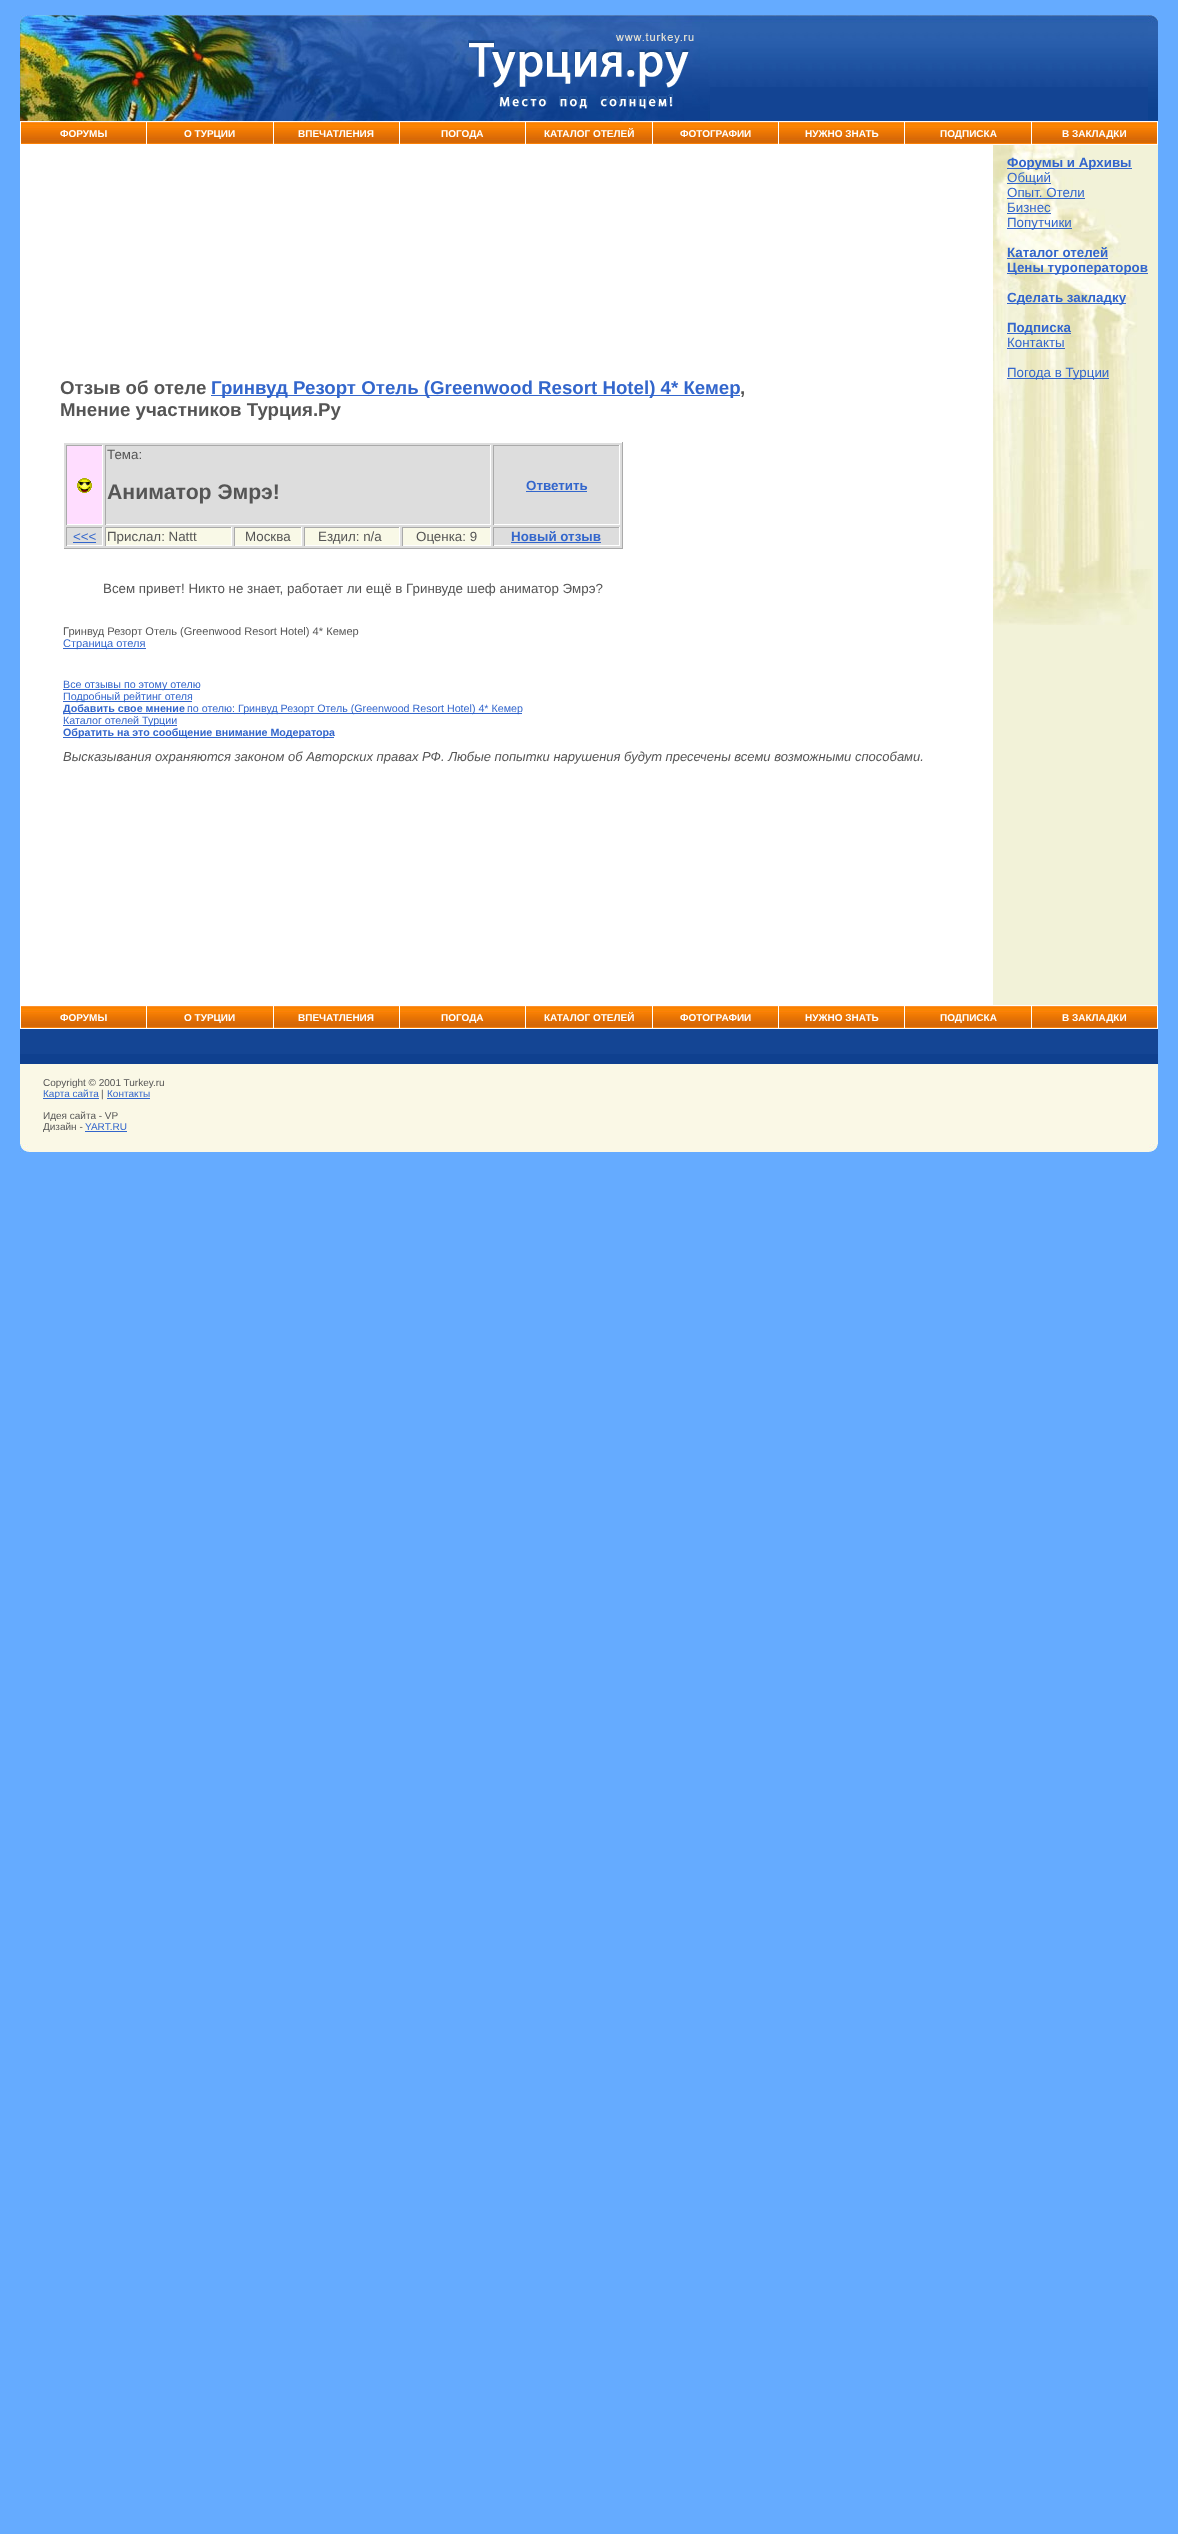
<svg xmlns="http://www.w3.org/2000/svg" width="1178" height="2534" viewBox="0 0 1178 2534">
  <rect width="100%" height="100%" fill="#65abff"/>
  <path d="M710 87h438v34H710z" fill="#134493"/>
  <image x="710" y="15" width="438" height="72" href="img/1.png"/>
  <image x="20" y="15" width="690" height="106" href="img/2.png"/>
  <image x="468" y="33" width="226" height="76" href="img/3.png"/>
  <image x="1148" y="15" width="10" height="106" href="img/4.png"/>
  <path d="M20 121h1138v24H20z" fill="#fff"/>
  <image x="21" y="122" width="125" height="22" href="img/5.png"/>
  <image x="147" y="122" width="126" height="22" href="img/6.png"/>
  <image x="274" y="122" width="125" height="22" href="img/5.png"/>
  <image x="400" y="122" width="125" height="22" href="img/5.png"/>
  <image x="526" y="122" width="126" height="22" href="img/6.png"/>
  <image x="653" y="122" width="125" height="22" href="img/5.png"/>
  <image x="779" y="122" width="125" height="22" href="img/5.png"/>
  <image x="905" y="122" width="126" height="22" href="img/6.png"/>
  <image x="1032" y="122" width="125" height="22" href="img/5.png"/>
  <path d="M993 145h165v860H993z" fill="#f2f2d8"/>
  <image x="993" y="145" width="160" height="480" href="img/7.png"/>
  <path d="M1007 168h125v1H1007z" fill="#36c"/>
  <path d="M1007 183h44v1H1007z" fill="#36c"/>
  <path d="M1007 198h78v1H1007z" fill="#36c"/>
  <path d="M1007 213h44v1H1007z" fill="#36c"/>
  <path d="M1007 228h65v1H1007z" fill="#36c"/>
  <path d="M1007 258h101v1H1007z" fill="#36c"/>
  <path d="M1007 273h141v1H1007z" fill="#36c"/>
  <path d="M1007 303h119v1H1007z" fill="#36c"/>
  <path d="M1007 333h64v1H1007z" fill="#36c"/>
  <path d="M1007 348h58v1H1007z" fill="#36c"/>
  <path d="M1007 378h102v1H1007z" fill="#36c"/>
  <path d="M20 145h973v860H20z" fill="#fff"/>
  <path d="M211 395h529v1H211z" fill="#36c"/>
  <path d="M64 443h558v105H64z" fill="#ddd"/>
  <path d="M622 442h1v107H622z" fill="#aaa"/>
  <path d="M63 548h560v1H63z" fill="#aaa"/>
  <path d="M63 548h1v1H63z" fill="#fff"/>
  <path d="M67 446h35v78H67z" fill="#fdf"/>
  <path d="M66 445h37v1H66z" fill="#aaa"/>
  <path d="M102 445h1v80H102z" fill="#fff"/>
  <path d="M66 524h37v1H66z" fill="#fff"/>
  <path d="M66 445h1v80H66z" fill="#aaa"/>
  <image x="77" y="478" width="15" height="15" href="img/8.png"/>
  <path d="M105 445h386v1H105z" fill="#aaa"/>
  <path d="M490 445h1v80H490z" fill="#fff"/>
  <path d="M105 524h386v1H105z" fill="#fff"/>
  <path d="M105 445h1v80H105z" fill="#aaa"/>
  <path d="M493 445h127v1H493z" fill="#aaa"/>
  <path d="M619 445h1v80H619z" fill="#fff"/>
  <path d="M493 524h127v1H493z" fill="#fff"/>
  <path d="M493 445h1v80H493z" fill="#aaa"/>
  <path d="M526 491h61v1H526z" fill="#36c"/>
  <path d="M66 527h37v1H66z" fill="#aaa"/>
  <path d="M102 527h1v19H102z" fill="#fff"/>
  <path d="M66 545h37v1H66z" fill="#fff"/>
  <path d="M66 527h1v19H66z" fill="#aaa"/>
  <path d="M73 542h23v1H73z" fill="#36c"/>
  <path d="M106 528h125v17H106z" fill="#f9f9e7"/>
  <path d="M105 527h127v1H105z" fill="#aaa"/>
  <path d="M231 527h1v19H231z" fill="#fff"/>
  <path d="M105 545h127v1H105z" fill="#fff"/>
  <path d="M105 527h1v19H105z" fill="#aaa"/>
  <path d="M235 528h66v17H235z" fill="#f9f9e7"/>
  <path d="M234 527h68v1H234z" fill="#aaa"/>
  <path d="M301 527h1v19H301z" fill="#fff"/>
  <path d="M234 545h68v1H234z" fill="#fff"/>
  <path d="M234 527h1v19H234z" fill="#aaa"/>
  <path d="M305 528h94v17H305z" fill="#f9f9e7"/>
  <path d="M304 527h96v1H304z" fill="#aaa"/>
  <path d="M399 527h1v19H399z" fill="#fff"/>
  <path d="M304 545h96v1H304z" fill="#fff"/>
  <path d="M304 527h1v19H304z" fill="#aaa"/>
  <path d="M403 528h87v17H403z" fill="#f9f9e7"/>
  <path d="M402 527h89v1H402z" fill="#aaa"/>
  <path d="M490 527h1v19H490z" fill="#fff"/>
  <path d="M402 545h89v1H402z" fill="#fff"/>
  <path d="M402 527h1v19H402z" fill="#aaa"/>
  <path d="M493 527h127v1H493z" fill="#aaa"/>
  <path d="M619 527h1v19H619z" fill="#fff"/>
  <path d="M493 545h127v1H493z" fill="#fff"/>
  <path d="M493 527h1v19H493z" fill="#aaa"/>
  <path d="M511 542h90v1H511z" fill="#36c"/>
  <path d="M63 648h83v1H63z" fill="#36c"/>
  <path d="M63 689h137v1H63z" fill="#36c"/>
  <path d="M63 701h129v1H63z" fill="#36c"/>
  <path d="M63 713h121v1H63z" fill="#36c"/>
  <path d="M184 713h338v1H184z" fill="#36c"/>
  <path d="M63 725h114v1H63z" fill="#36c"/>
  <path d="M63 737h271v1H63z" fill="#36c"/>
  <path d="M20 1005h1138v24H20z" fill="#fff"/>
  <image x="21" y="1006" width="125" height="22" href="img/5.png"/>
  <image x="147" y="1006" width="126" height="22" href="img/6.png"/>
  <image x="274" y="1006" width="125" height="22" href="img/5.png"/>
  <image x="400" y="1006" width="125" height="22" href="img/5.png"/>
  <image x="526" y="1006" width="126" height="22" href="img/6.png"/>
  <image x="653" y="1006" width="125" height="22" href="img/5.png"/>
  <image x="779" y="1006" width="125" height="22" href="img/5.png"/>
  <image x="905" y="1006" width="126" height="22" href="img/6.png"/>
  <image x="1032" y="1006" width="125" height="22" href="img/5.png"/>
  <path d="M20 1029h1138v25H20z" fill="#144594"/>
  <path d="M20 1054h1138v10H20z" fill="#0f408f"/>
  <path d="M20 1064h1138v80H20z" fill="#faf8e6"/>
  <path d="M43 1098h56v1H43z" fill="#36c"/>
  <path d="M107 1098h43v1H107z" fill="#36c"/>
  <path d="M85 1131h42v1H85z" fill="#36c"/>
  <path d="M29 1144h1120v8H29z" fill="#faf8e6"/>
  <image x="20" y="1144" width="9" height="8" href="img/9.png"/>
  <image x="1149" y="1144" width="9" height="8" href="img/10.png"/>
  <g font-family="Liberation Sans" font-size="10" font-weight="bold" fill="#fff">
    <text x="60" y="137">ФОРУМЫ</text>
    <text x="184" y="137">О ТУРЦИИ</text>
    <text x="298" y="137">ВПЕЧАТЛЕНИЯ</text>
    <text x="441" y="137">ПОГОДА</text>
    <text x="544" y="137">КАТАЛОГ ОТЕЛЕЙ</text>
    <text x="680" y="137">ФОТОГРАФИИ</text>
    <text x="805" y="137">НУЖНО ЗНАТЬ</text>
    <text x="940" y="137">ПОДПИСКА</text>
    <text x="1062" y="137">В ЗАКЛАДКИ</text>
  </g>
  <text x="1007" y="167" font-family="Liberation Sans" font-size="13.35" font-weight="bold" fill="#36c">Форумы и Архивы</text>
  <g font-family="Liberation Sans" font-size="13.35" fill="#36c">
    <text x="1007" y="182">Общий</text>
    <text x="1007" y="197">Опыт. Отели</text>
    <text x="1007" y="212">Бизнес</text>
    <text x="1007" y="227">Попутчики</text>
  </g>
  <g font-family="Liberation Sans" font-size="13.35" font-weight="bold" fill="#36c">
    <text x="1007" y="257">Каталог отелей</text>
    <text x="1007" y="272">Цены туроператоров</text>
    <text x="1007" y="302">Сделать закладку</text>
    <text x="1007" y="332">Подписка</text>
  </g>
  <g font-family="Liberation Sans" font-size="13.35" fill="#36c">
    <text x="1007" y="347">Контакты</text>
    <text x="1007" y="377">Погода в Турции</text>
  </g>
  <text x="60" y="394" font-family="Liberation Sans" font-size="18.7" font-weight="bold" fill="#555">Отзыв об отеле</text>
  <text x="211" y="394" font-family="Liberation Sans" font-size="18.7" font-weight="bold" fill="#36c">Гринвуд Резорт Отель (Greenwood Resort Hotel) 4* Кемер</text>
  <g font-family="Liberation Sans" font-size="18.7" font-weight="bold" fill="#555">
    <text x="740" y="394">,</text>
    <text x="60" y="416">Мнение участников Турция.Ру</text>
  </g>
  <text x="107" y="459" font-family="Liberation Sans" font-size="13.35" fill="#555">Тема:</text>
  <text x="107" y="499" font-family="Liberation Sans" font-size="21.25" font-weight="bold" fill="#555">Аниматор Эмрэ!</text>
  <text x="526" y="490" font-family="Liberation Sans" font-size="13.35" font-weight="bold" fill="#36c">Ответить</text>
  <text x="73" y="541" font-family="Liberation Sans" font-size="13.35" fill="#36c">&lt;&lt;&lt;</text>
  <g font-family="Liberation Sans" font-size="13.35" fill="#555">
    <text x="107" y="541">Прислал: Nattt</text>
    <text x="245" y="541">Москва</text>
    <text x="318" y="541">Ездил: n/a</text>
    <text x="416" y="541">Оценка: 9</text>
  </g>
  <text x="511" y="541" font-family="Liberation Sans" font-size="13.35" font-weight="bold" fill="#36c">Новый отзыв</text>
  <text x="103" y="593" font-family="Liberation Sans" font-size="13.35" fill="#555">Всем привет! Никто не знает, работает ли ещё в Гринвуде шеф аниматор Эмрэ?</text>
  <text x="63" y="635" font-family="Liberation Sans" font-size="11.1" fill="#555">Гринвуд Резорт Отель (Greenwood Resort Hotel) 4* Кемер</text>
  <text x="63" y="647" font-family="Liberation Sans" font-size="11.1" fill="#36c">Страница отеля</text>
  <g font-family="Liberation Sans" font-size="10.7" fill="#36c">
    <text x="63" y="688">Все отзывы по этому отелю</text>
    <text x="63" y="700">Подробный рейтинг отеля</text>
  </g>
  <text x="63" y="712" font-family="Liberation Sans" font-size="10.7" font-weight="bold" fill="#36c">Добавить свое мнение</text>
  <g font-family="Liberation Sans" font-size="10.7" fill="#36c">
    <text x="187" y="712">по отелю: Гринвуд Резорт Отель (Greenwood Resort Hotel) 4* Кемер</text>
    <text x="63" y="724">Каталог отелей Турции</text>
  </g>
  <text x="63" y="736" font-family="Liberation Sans" font-size="10.7" font-weight="bold" fill="#36c">Обратить на это сообщение внимание Модератора</text>
  <text x="63" y="761" font-family="Liberation Sans" font-size="13" font-style="italic" fill="#555">Высказывания охраняются законом об Авторских правах РФ. Любые попытки нарушения будут пресечены всеми возможными способами.</text>
  <g font-family="Liberation Sans" font-size="10" font-weight="bold" fill="#fff">
    <text x="60" y="1021">ФОРУМЫ</text>
    <text x="184" y="1021">О ТУРЦИИ</text>
    <text x="298" y="1021">ВПЕЧАТЛЕНИЯ</text>
    <text x="441" y="1021">ПОГОДА</text>
    <text x="544" y="1021">КАТАЛОГ ОТЕЛЕЙ</text>
    <text x="680" y="1021">ФОТОГРАФИИ</text>
    <text x="805" y="1021">НУЖНО ЗНАТЬ</text>
    <text x="940" y="1021">ПОДПИСКА</text>
    <text x="1062" y="1021">В ЗАКЛАДКИ</text>
  </g>
  <text x="43" y="1086" font-family="Liberation Sans" font-size="10" fill="#555">Copyright © 2001 Turkey.ru</text>
  <text x="43" y="1097" font-family="Liberation Sans" font-size="10" fill="#36c">Карта сайта</text>
  <text x="101" y="1097" font-family="Liberation Sans" font-size="10" fill="#555">|</text>
  <text x="107" y="1097" font-family="Liberation Sans" font-size="10" fill="#36c">Контакты</text>
  <g font-family="Liberation Sans" font-size="10" fill="#555">
    <text x="43" y="1119">Идея сайта - VP</text>
    <text x="43" y="1130">Дизайн -</text>
  </g>
  <text x="85" y="1130" font-family="Liberation Sans" font-size="10" fill="#36c">YART.RU</text>
</svg>
